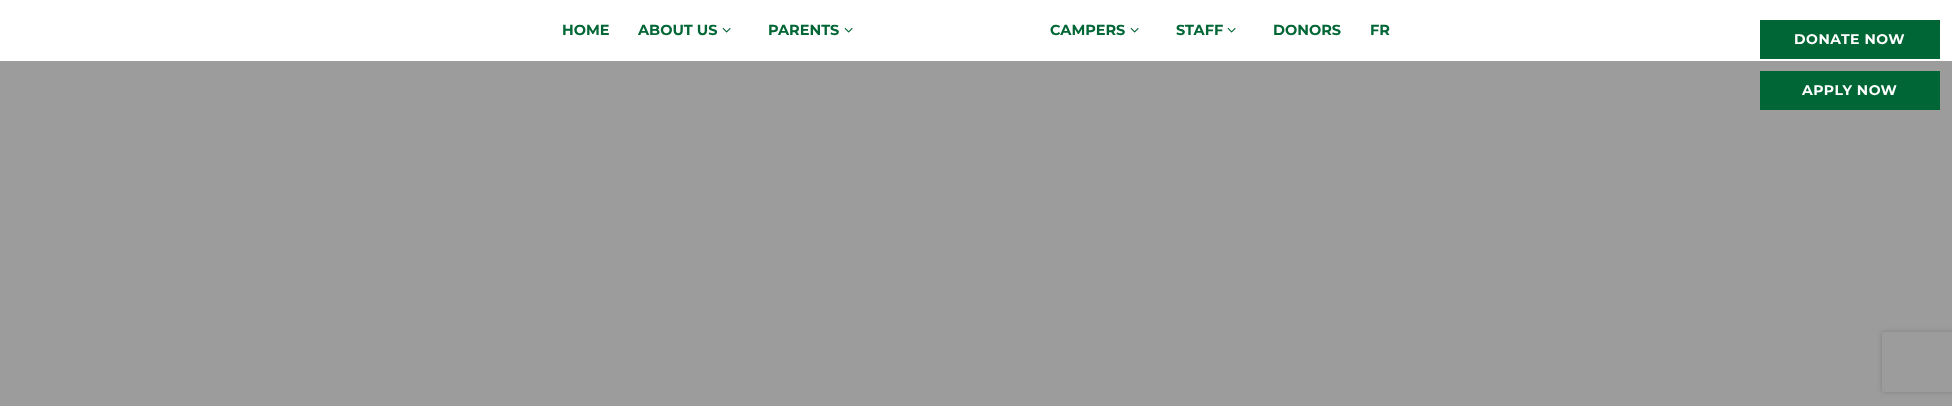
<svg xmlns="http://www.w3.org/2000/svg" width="1952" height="406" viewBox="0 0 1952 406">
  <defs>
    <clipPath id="clip1"><path d="M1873 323H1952V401H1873ZM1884 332H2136C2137 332 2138 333 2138 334V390C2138 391 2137 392 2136 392H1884C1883 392 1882 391 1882 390V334C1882 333 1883 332 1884 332Z" clip-rule="evenodd"/></clipPath>
  </defs>
  <rect width="100%" height="100%" fill="#fff"/>
  <image x="722" y="28" width="9" height="5" href="img/1.png"/>
  <image x="844" y="28" width="9" height="5" href="img/1.png"/>
  <image x="1130" y="28" width="9" height="5" href="img/1.png"/>
  <image x="1227" y="28" width="9" height="5" href="img/1.png"/>
  <path d="M1760 20h180v39H1760z" fill="#006635"/>
  <path d="M0 61h1952v345H0z" fill="#9c9c9c"/>
  <path d="M1760 71h180v39H1760z" fill="#006635"/>
  <g clip-path="url(#clip1)">
    <rect x="1882" y="332" width="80" height="60" rx="2" fill="#808080" filter="blur(2.5px)"/>
  </g>
  <g font-family="Montserrat" font-size="14.5" font-weight="bold" fill="#006635">
    <text x="562" y="35">HOME</text>
    <text x="638" y="35">ABOUT US</text>
    <text x="768" y="35">PARENTS</text>
    <text x="1050" y="35">CAMPERS</text>
    <text x="1176" y="35">STAFF</text>
    <text x="1273" y="35">DONORS</text>
    <text x="1370" y="35">FR</text>
  </g>
  <g font-family="Montserrat" font-size="14" font-weight="bold" letter-spacing="0.5" fill="#fff">
    <text x="1794" y="44">DONATE NOW</text>
    <text x="1802" y="95">APPLY NOW</text>
  </g>
</svg>
